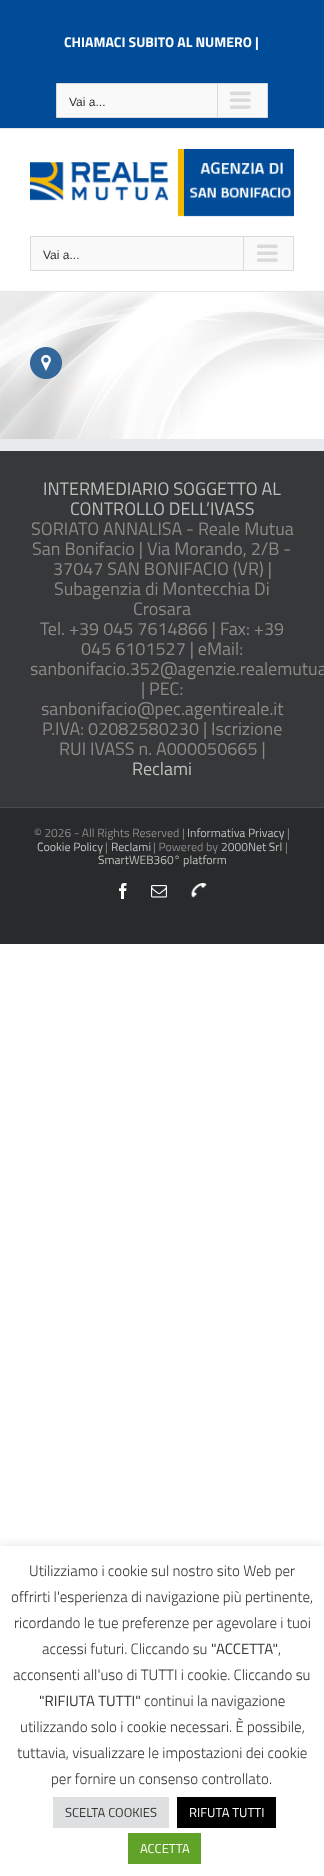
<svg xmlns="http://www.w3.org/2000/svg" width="324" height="1876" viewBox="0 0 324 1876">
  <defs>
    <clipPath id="clip1"><path d="M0 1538h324v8H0z"/></clipPath>
  </defs>
  <rect width="100%" height="100%" fill="#fff"/>
  <path d="M0 0h324v128H0z" fill="#004c99"/>
  <path d="M0 128h324v1H0z" fill="#e5e5e5"/>
  <path d="M56.5 83.5h211v34H56.5z" fill="#f9f9f9" stroke="#dadada"/>
  <path d="M217 84h1v33H217z" fill="#dadada"/>
  <image x="230" y="91" width="21" height="18" href="img/1.png"/>
  <path d="M0 291h324v1H0z" fill="#e5e5e5"/>
  <image x="30" y="149" width="264" height="68" href="img/2.png"/>
  <path d="M30.5 236.5h263v34H30.5z" fill="#f9f9f9" stroke="#dadada"/>
  <path d="M243 237h1v33H243z" fill="#dadada"/>
  <image x="257" y="244" width="21" height="18" href="img/1.png"/>
  <image x="0" y="292" width="324" height="147" href="img/3.png"/>
  <image x="30" y="347" width="32" height="32" href="img/4.png"/>
  <path d="M0 451h324v356H0z" fill="#363839"/>
  <path d="M0 439h324v12H0z" fill="#e9eaee"/>
  <path d="M0 808h324v136H0z" fill="#282a2b"/>
  <path d="M0 807h324v1H0z" fill="#4b4c4d"/>
  <image x="119" y="883" width="8" height="16" href="img/5.png"/>
  <image x="151" y="885" width="16" height="13" href="img/6.png"/>
  <image x="191" y="883" width="16" height="15" href="img/7.png"/>
  <g clip-path="url(#clip1)">
    <path d="M0 1545h324v330H0z" fill="#acabab4d" filter="blur(5px)"/>
  </g>
  <path d="M53 1797h116v31H53z" fill="#dedfe0"/>
  <path d="M177 1797h99v31H177z" fill="#000"/>
  <path d="M128 1833h73v31H128z" fill="#61a229"/>
  <text x="64" y="47" font-family="Titillium Web" font-size="14" font-weight="bold" fill="#fff">CHIAMACI SUBITO AL NUMERO |</text>
  <g font-family="Liberation Sans" font-size="12" fill="#333">
    <text x="69" y="106">Vai a...</text>
    <text x="43" y="259">Vai a...</text>
  </g>
  <g font-family="Titillium Web" font-size="18" fill="#bfbfbf">
    <text x="43" y="495">INTERMEDIARIO SOGGETTO AL</text>
    <text x="70" y="515">CONTROLLO DELL’IVASS</text>
  </g>
  <g font-family="Titillium Web" font-size="18" fill="#8c8989">
    <text x="31" y="535">SORIATO ANNALISA - Reale Mutua</text>
    <text x="32" y="555">San Bonifacio | Via Morando, 2/B -</text>
    <text x="53" y="575">37047 SAN BONIFACIO (VR) |</text>
    <text x="54" y="595">Subagenzia di Montecchia Di</text>
    <text x="133" y="615">Crosara</text>
    <text x="40" y="635">Tel. +39 045 7614866 | Fax: +39</text>
    <text x="81" y="655">045 6101527 | eMail:</text>
    <text x="30" y="675">sanbonifacio.352@agenzie.realemutua</text>
    <text x="141" y="695">| PEC:</text>
    <text x="41" y="715">sanbonifacio@pec.agentireale.it</text>
    <text x="42" y="735">P.IVA: 02082580230 | Iscrizione</text>
    <text x="59" y="755">RUI IVASS n. A000050665 |</text>
  </g>
  <text x="132" y="775" font-family="Titillium Web" font-size="18" fill="#bfbfbf">Reclami</text>
  <text x="34" y="837" font-family="Titillium Web" font-size="12" fill="#8c8989">© 2026 - All Rights Reserved |</text>
  <text x="187" y="837" font-family="Titillium Web" font-size="12" fill="#bfbfbf">Informativa Privacy</text>
  <text x="287" y="837" font-family="Titillium Web" font-size="12" fill="#8c8989">|</text>
  <text x="37" y="851" font-family="Titillium Web" font-size="12" fill="#bfbfbf">Cookie Policy</text>
  <text x="105" y="851" font-family="Titillium Web" font-size="12" fill="#8c8989">|</text>
  <text x="111" y="851" font-family="Titillium Web" font-size="12" fill="#bfbfbf">Reclami</text>
  <text x="153" y="851" font-family="Titillium Web" font-size="12" fill="#8c8989">| Powered by</text>
  <text x="221" y="851" font-family="Titillium Web" font-size="12" fill="#bfbfbf">2000Net Srl</text>
  <text x="285" y="851" font-family="Titillium Web" font-size="12" fill="#8c8989">|</text>
  <text x="98" y="864" font-family="Titillium Web" font-size="12" fill="#bfbfbf">SmartWEB360° platform</text>
  <g font-family="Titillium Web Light" font-size="15" font-weight="300" fill="#333">
    <text x="29" y="1576">Utilizziamo i cookie sul nostro sito Web per</text>
    <text x="11" y="1602">offrirti l'esperienza di navigazione più pertinente,</text>
    <text x="14" y="1628">ricordando le tue preferenze per agevolare i tuoi</text>
    <text x="42" y="1654">accessi futuri. Cliccando su</text>
  </g>
  <text x="211" y="1654" font-family="Titillium Web" font-size="15" fill="#333">"ACCETTA"</text>
  <g font-family="Titillium Web Light" font-size="15" font-weight="300" fill="#333">
    <text x="278" y="1654">,</text>
    <text x="13" y="1680">acconsenti all'uso di TUTTI i cookie. Cliccando su</text>
  </g>
  <text x="39" y="1706" font-family="Titillium Web" font-size="15" fill="#333">"RIFIUTA TUTTI"</text>
  <g font-family="Titillium Web Light" font-size="15" font-weight="300" fill="#333">
    <text x="144" y="1706">continui la navigazione</text>
    <text x="20" y="1732">utilizzando solo i cookie necessari. È possibile,</text>
    <text x="17" y="1758">tuttavia, visualizzare le impostazioni dei cookie</text>
    <text x="51" y="1784">per fornire un consenso controllato.</text>
  </g>
  <text x="65" y="1817" font-family="Titillium Web" font-size="13" fill="#333">SCELTA COOKIES</text>
  <g font-family="Titillium Web" font-size="13" fill="#fff">
    <text x="189" y="1817">RIFUTA TUTTI</text>
    <text x="140" y="1853">ACCETTA</text>
  </g>
</svg>
